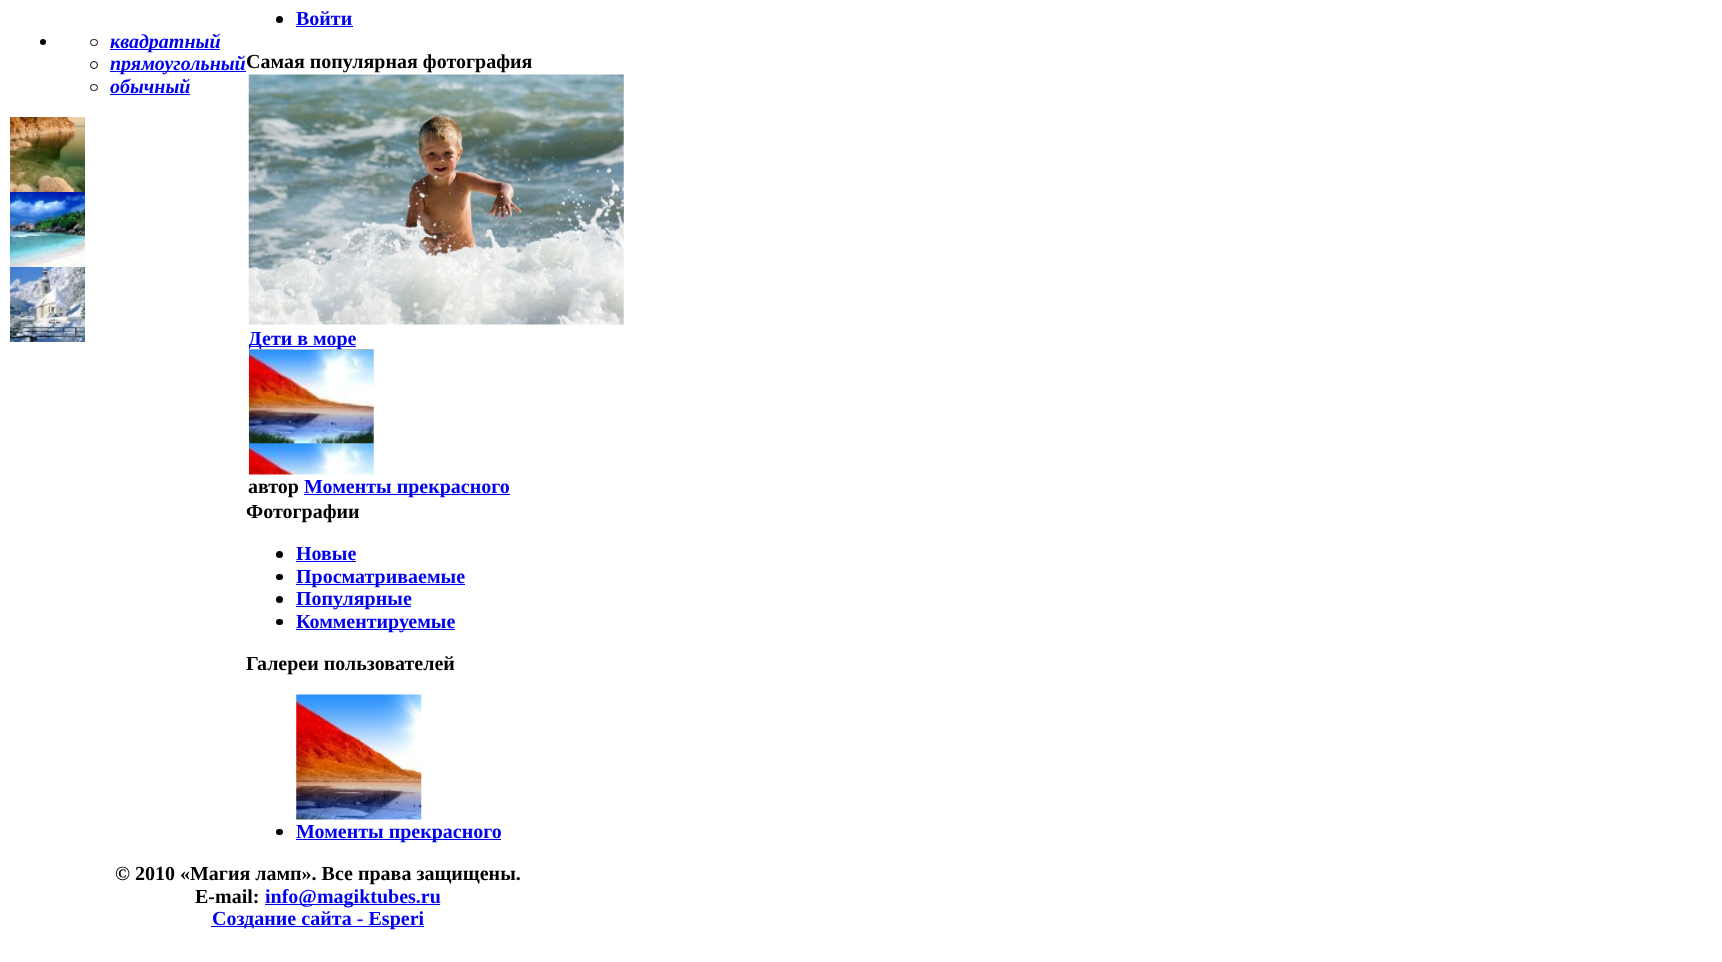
<svg xmlns="http://www.w3.org/2000/svg" width="1722" height="962" viewBox="0 0 1722 962">
  <defs>
    <clipPath id="clip1"><path d="M249 328h375v170H249z"/></clipPath>
  </defs>
  <rect width="100%" height="100%" fill="#fff"/>
  <circle cx="43" cy="42" r="3" fill="#000"/>
  <rect x="90.5" y="39.5" width="7" height="6" rx="3" fill="none" stroke="#000"/>
  <path d="M110 49h110v1H110z" fill="#00e"/>
  <circle cx="94" cy="65" r="3.5" fill="none" stroke="#000"/>
  <path d="M110 71h136v1H110z" fill="#00e"/>
  <rect x="90.5" y="84.5" width="7" height="6" rx="3" fill="none" stroke="#000"/>
  <path d="M110 94h80v1H110z" fill="#00e"/>
  <image x="10" y="117" width="75" height="75" href="img/1.png"/>
  <image x="10" y="192" width="75" height="75" href="img/2.png"/>
  <image x="10" y="267" width="75" height="75" href="img/3.png"/>
  <circle cx="279.5" cy="19.5" r="3.5" fill="#000"/>
  <path d="M296 26h57v1H296z" fill="#00e"/>
  <image x="248" y="74" width="376" height="251" href="img/4.png"/>
  <path d="M249 346h107v1H249z" fill="#00e"/>
  <image x="248" y="349" width="126" height="126" href="img/5.png"/>
  <path d="M304 494h206v1H304z" fill="#00e"/>
  <circle cx="279.5" cy="554.5" r="3.5" fill="#000"/>
  <path d="M296 561h60v1H296z" fill="#00e"/>
  <rect x="276" y="574" width="7" height="6" rx="3" fill="#000"/>
  <path d="M296 584h169v1H296z" fill="#00e"/>
  <circle cx="279.5" cy="599.5" r="3.5" fill="#000"/>
  <path d="M296 606h115v1H296z" fill="#00e"/>
  <rect x="276" y="619" width="7" height="6" rx="3" fill="#000"/>
  <path d="M296 629h159v1H296z" fill="#00e"/>
  <rect x="276" y="829" width="7" height="6" rx="3" fill="#000"/>
  <image x="296" y="694" width="126" height="126" href="img/6.png"/>
  <path d="M296 839h205v1H296z" fill="#00e"/>
  <path d="M265 904h175v1H265z" fill="#00e"/>
  <path d="M211 926h213v1H211z" fill="#00e"/>
  <g font-family="Liberation Serif" font-size="20" font-weight="bold" font-style="italic" fill="#00e">
    <text x="110" y="48">квадратный</text>
    <text x="110" y="70">прямоугольный</text>
    <text x="110" y="93">обычный</text>
  </g>
  <text x="296" y="25" font-family="Liberation Serif" font-size="20" font-weight="bold" fill="#00e">Войти</text>
  <text x="246" y="68" font-family="Liberation Serif" font-size="20" font-weight="bold" fill="#000">Самая популярная фотография</text>
  <g clip-path="url(#clip1)">
    <text x="248" y="345" font-family="Liberation Serif" font-size="20" font-weight="bold" fill="#00e">Дети в море</text>
  </g>
  <text x="248" y="493" font-family="Liberation Serif" font-size="20" font-weight="bold" fill="#000">автор</text>
  <text x="304" y="493" font-family="Liberation Serif" font-size="20" font-weight="bold" fill="#00e">Моменты прекрасного</text>
  <text x="246" y="518" font-family="Liberation Serif" font-size="20" font-weight="bold" fill="#000">Фотографии</text>
  <g font-family="Liberation Serif" font-size="20" font-weight="bold" fill="#00e">
    <text x="296" y="560">Новые</text>
    <text x="296" y="583">Просматриваемые</text>
    <text x="296" y="605">Популярные</text>
    <text x="296" y="628">Комментируемые</text>
  </g>
  <text x="246" y="670" font-family="Liberation Serif" font-size="20" font-weight="bold" fill="#000">Галереи пользователей</text>
  <text x="296" y="838" font-family="Liberation Serif" font-size="20" font-weight="bold" fill="#00e">Моменты прекрасного</text>
  <g font-family="Liberation Serif" font-size="20" font-weight="bold" fill="#000">
    <text x="115" y="880">© 2010 «Магия ламп». Все права защищены.</text>
    <text x="195" y="903">E-mail:</text>
  </g>
  <g font-family="Liberation Serif" font-size="20" font-weight="bold" fill="#00e">
    <text x="265" y="903">info@magiktubes.ru</text>
    <text x="212" y="925">Создание сайта - Esperi</text>
  </g>
</svg>
